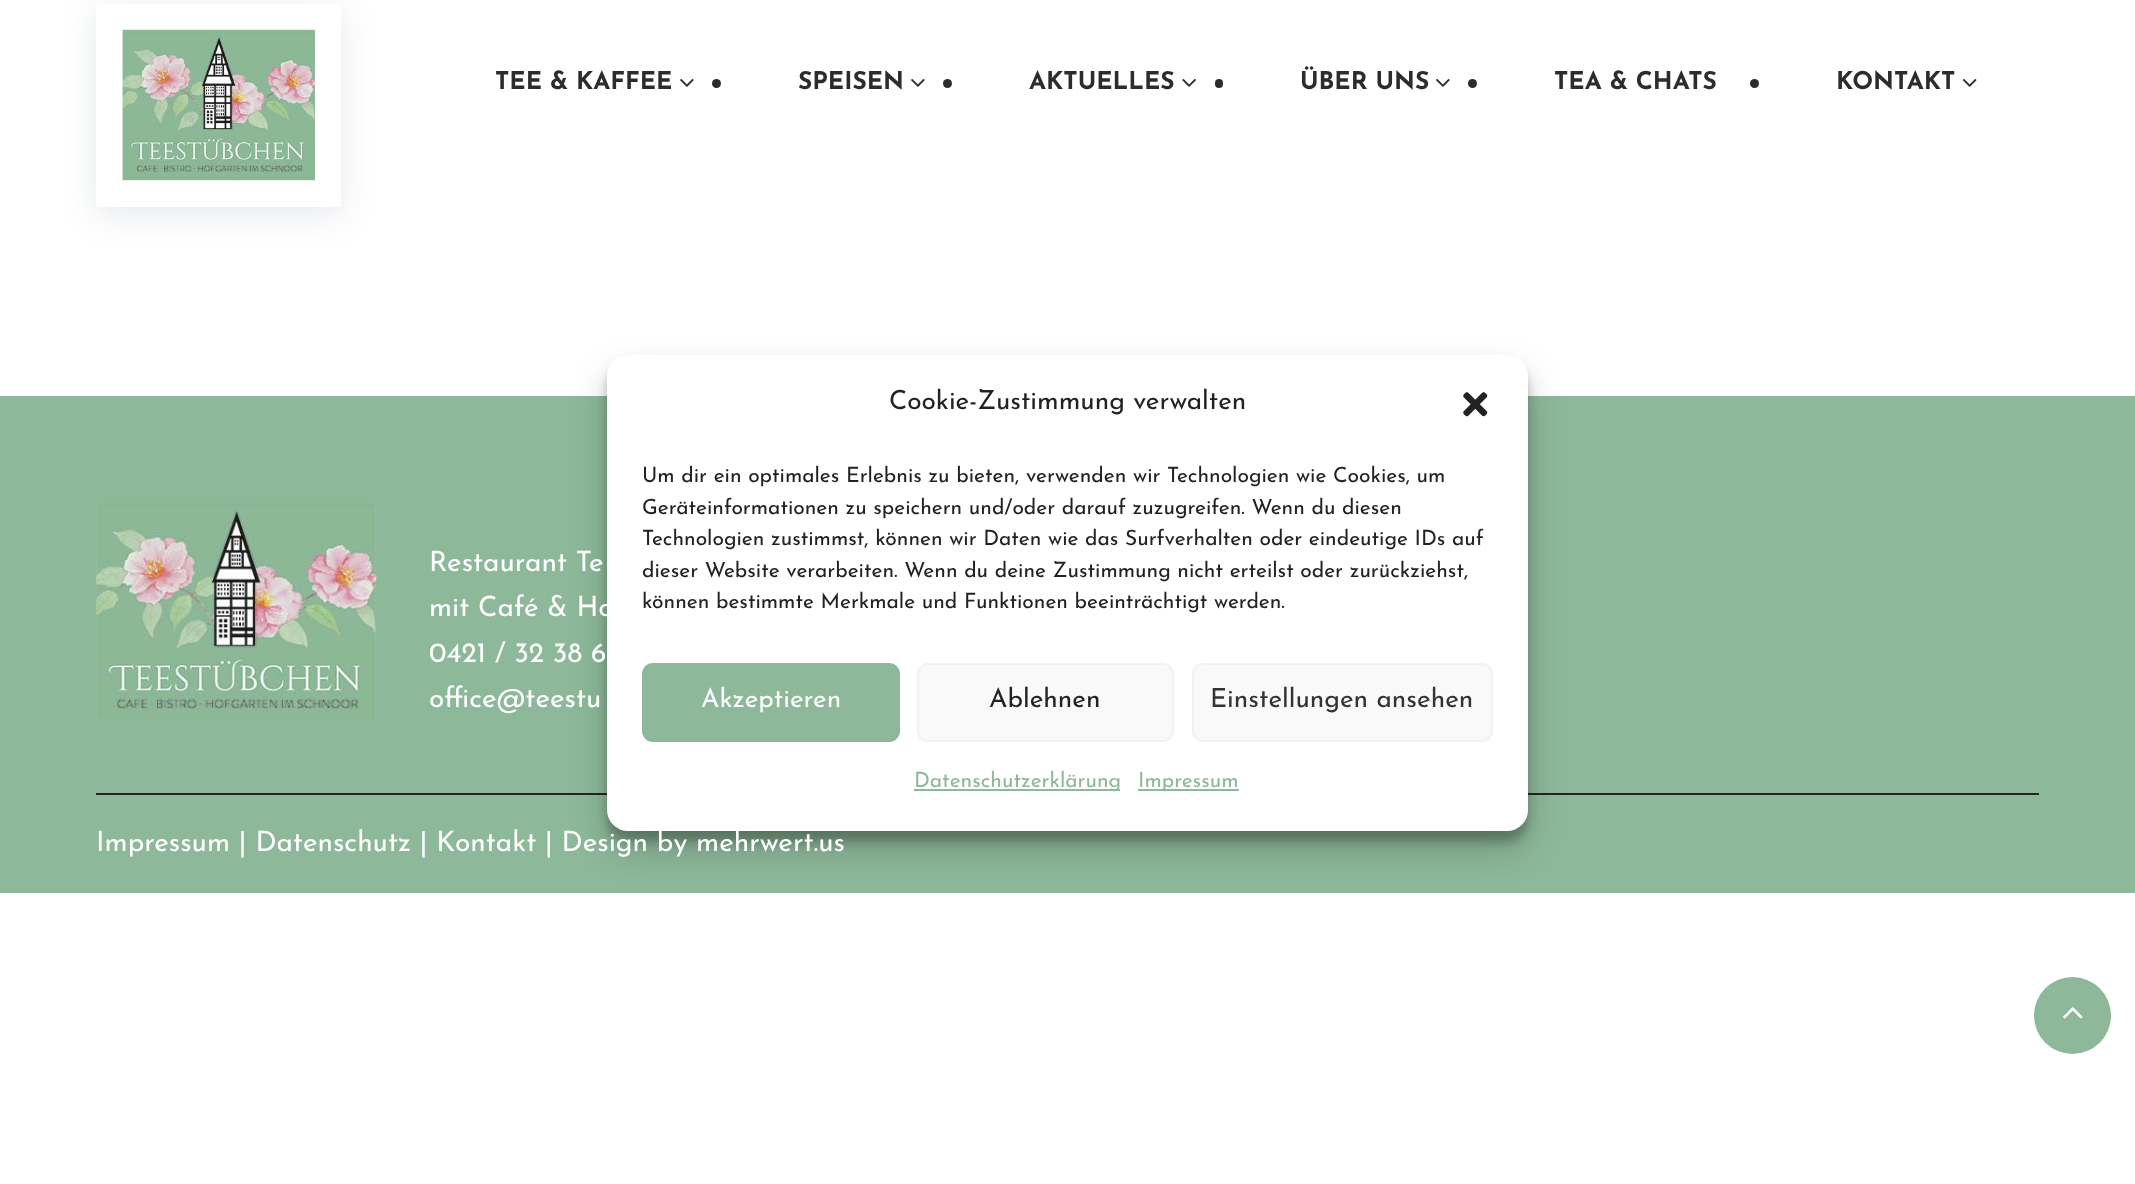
<svg xmlns="http://www.w3.org/2000/svg" width="2135" height="1184" viewBox="0 0 2135 1184">
  <rect width="100%" height="100%" fill="#fff"/>
  <path d="M96 12h245v203H96z" fill="#07193c1a" filter="blur(17.5px)"/>
  <path d="M96 4h245v203H96z" fill="#fff"/>
  <image x="122" y="29" width="193" height="152" href="img/1.png"/>
  <image x="680" y="79" width="14" height="8" href="img/2.png"/>
  <circle cx="716.5" cy="83.5" r="4.5" fill="#2c2c2c"/>
  <image x="911" y="79" width="14" height="8" href="img/2.png"/>
  <circle cx="947.5" cy="83.5" r="4.5" fill="#2c2c2c"/>
  <image x="1182" y="79" width="14" height="8" href="img/3.png"/>
  <rect x="1215" y="79" width="8" height="9" rx="4" fill="#2c2c2c"/>
  <image x="1436" y="79" width="14" height="8" href="img/2.png"/>
  <circle cx="1472.5" cy="83.5" r="4.5" fill="#2c2c2c"/>
  <circle cx="1754.5" cy="83.5" r="4.5" fill="#2c2c2c"/>
  <image x="1962" y="79" width="15" height="8" href="img/4.png"/>
  <path d="M0 396h2135v497H0z" fill="#8db899"/>
  <image x="96" y="501" width="281" height="220" href="img/5.png"/>
  <path d="M96 793h1943v2H96z" fill="#252424"/>
  <rect x="607" y="366" width="921" height="476" rx="21" fill="#0000003b" filter="blur(5px)"/>
  <rect x="607" y="373" width="921" height="476" rx="21" fill="#00000030" filter="blur(17.5px)"/>
  <rect x="607" y="355" width="921" height="476" rx="21" fill="#fff"/>
  <image x="1463" y="392" width="25" height="25" href="img/6.png"/>
  <rect x="643" y="664" width="256" height="77" rx="10" fill="#8db899" stroke="#8db899" stroke-width="2"/>
  <rect x="918" y="664" width="255" height="77" rx="10" fill="#f9f9f9" stroke="#f2f2f2" stroke-width="2"/>
  <rect x="1193" y="664" width="299" height="77" rx="10" fill="#f9f9f9" stroke="#f2f2f2" stroke-width="2"/>
  <path d="M914 789h206v2H914z" fill="#8db899"/>
  <path d="M1138 789h101v2H1138z" fill="#8db899"/>
  <circle cx="2072.5" cy="1015.5" r="38.5" fill="#8db899"/>
  <image x="2063" y="1007" width="20" height="12" href="img/7.png"/>
  <g font-family="Josefin Sans" font-size="24.5" font-weight="bold" fill="#2c2c2c">
    <text x="495" y="89">TEE &amp; KAFFEE</text>
    <text x="798" y="89">SPEISEN</text>
    <text x="1029" y="89">AKTUELLES</text>
    <text x="1300" y="89">ÜBER UNS</text>
    <text x="1554" y="89">TEA &amp; CHATS</text>
    <text x="1836" y="89">KONTAKT</text>
  </g>
  <g font-family="Josefin Sans" font-size="28" fill="#fff">
    <text x="429" y="571">Restaurant Te</text>
    <text x="429" y="616">mit Café &amp; Ho</text>
    <text x="429" y="662">0421 / 32 38 6</text>
    <text x="429" y="707">office@teestu</text>
    <text x="96" y="851">Impressum | Datenschutz | Kontakt | Design by mehrwert.us</text>
  </g>
  <text x="889" y="409" font-family="Josefin Sans" font-size="26.25" fill="#222">Cookie-Zustimmung verwalten</text>
  <g font-family="Josefin Sans" font-size="21" fill="#222">
    <text x="642" y="482">Um dir ein optimales Erlebnis zu bieten, verwenden wir Technologien wie Cookies, um</text>
    <text x="642" y="514">Geräteinformationen zu speichern und/oder darauf zuzugreifen. Wenn du diesen</text>
    <text x="642" y="545">Technologien zustimmst, können wir Daten wie das Surfverhalten oder eindeutige IDs auf</text>
    <text x="642" y="577">dieser Website verarbeiten. Wenn du deine Zustimmung nicht erteilst oder zurückziehst,</text>
    <text x="642" y="608">können bestimmte Merkmale und Funktionen beeinträchtigt werden.</text>
  </g>
  <text x="701" y="707" font-family="Josefin Sans" font-size="26.25" fill="#fff">Akzeptieren</text>
  <text x="989" y="707" font-family="Josefin Sans" font-size="26.25" fill="#222">Ablehnen</text>
  <text x="1210" y="707" font-family="Josefin Sans" font-size="26.25" fill="#333">Einstellungen ansehen</text>
  <g font-family="Josefin Sans" font-size="21" fill="#8db899">
    <text x="914" y="787">Datenschutzerklärung</text>
    <text x="1138" y="787">Impressum</text>
  </g>
</svg>
